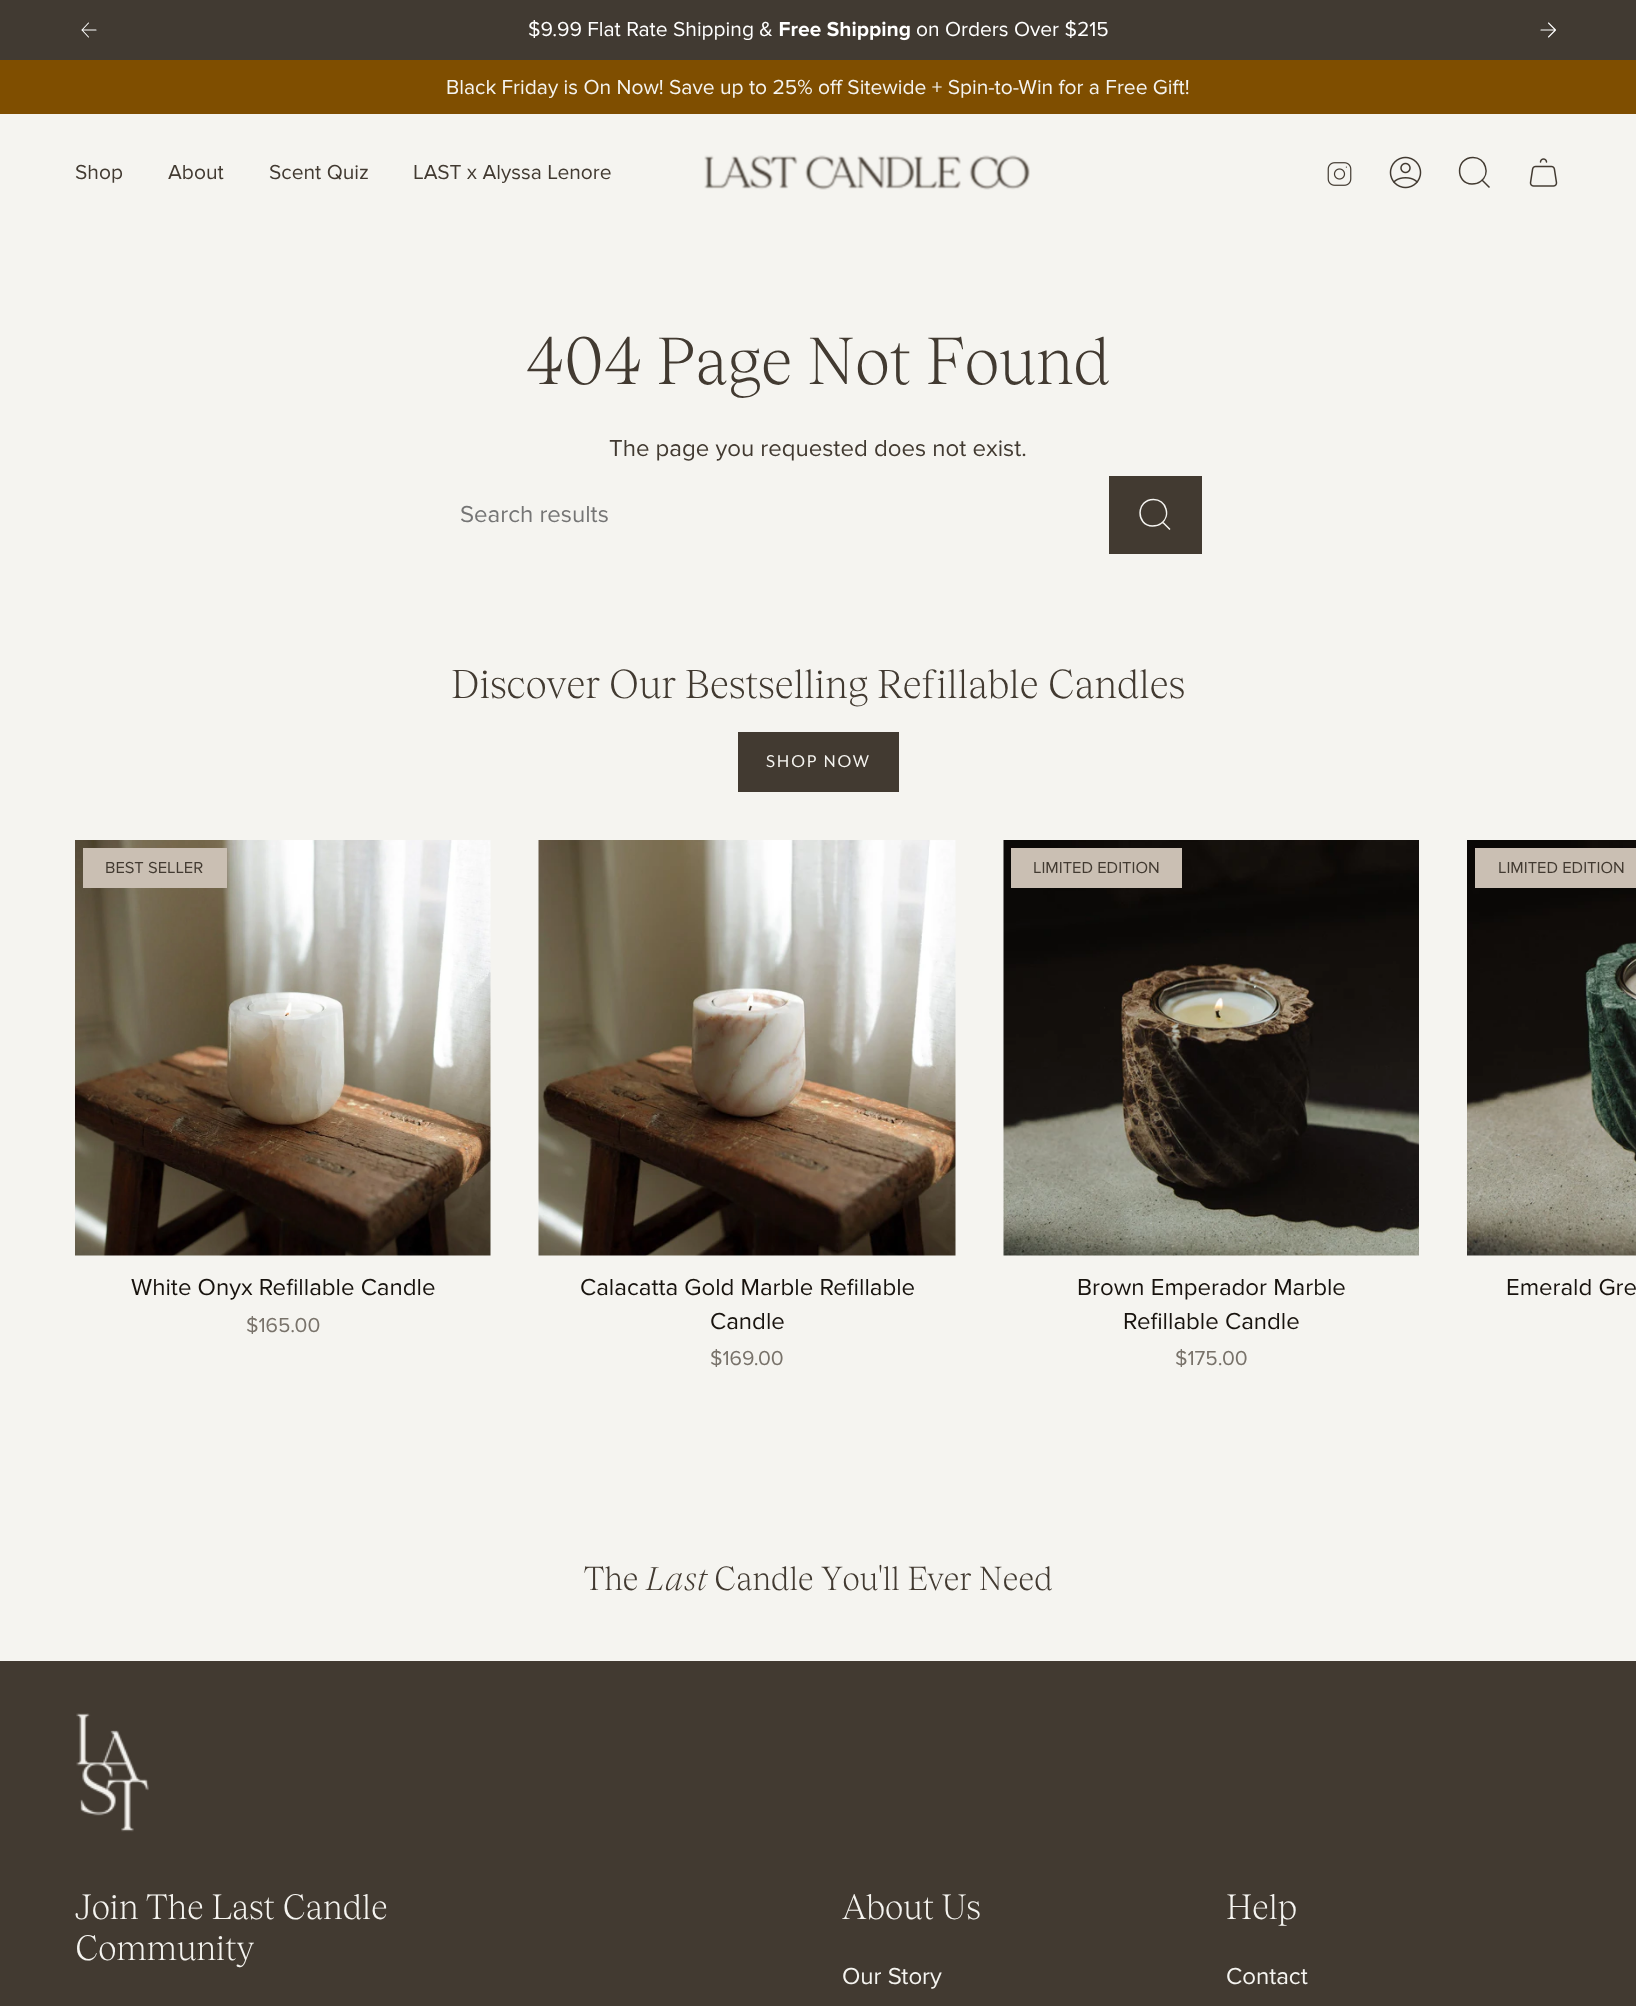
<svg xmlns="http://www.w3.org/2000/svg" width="1636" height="2006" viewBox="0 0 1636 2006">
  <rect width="100%" height="100%" fill="#f5f4f0"/>
  <path d="M0 0h1636v60H0z" fill="#413a32"/>
  <path d="M96 30H82M82 30L88.5 23M82 30L88.5 37" fill="none" stroke="#fff" stroke-width="1.1" stroke-linecap="round" stroke-linejoin="round"/>
  <image x="779" y="21" width="131" height="20" href="img/1.png"/>
  <path d="M1541 30H1555.5M1555.5 30L1548.5 23M1555.5 30L1548.5 37" fill="none" stroke="#fff" stroke-width="1.1" stroke-linecap="round" stroke-linejoin="round"/>
  <path d="M0 60h1636v54H0z" fill="#7f4e00"/>
  <image x="704" y="155" width="326" height="35" href="img/2.png"/>
  <image x="1327" y="162" width="25" height="24" href="img/3.png"/>
  <image x="1389" y="156" width="33" height="33" href="img/4.png"/>
  <path d="M1473 157.5C1485.5 157.5 1491 174 1480.5 181.5C1478 183.5 1475 184 1472 184C1455 183.5 1455.5 157.5 1473 157.5ZM1482 180L1489.5 187.5" fill="none" stroke="#423a31" stroke-width="1.5"/>
  <image x="1529" y="158" width="29" height="29" href="img/5.png"/>
  <path d="M1109 476h93v78H1109z" fill="#423a31"/>
  <path d="M1153.5 499.5C1166 499.5 1171.5 516 1161 523.5C1158.5 525.5 1155.5 526 1152.5 526C1135.5 525.5 1136 499.5 1153.5 499.5ZM1162.5 522L1170 529.5" fill="none" stroke="#f5f4f0" stroke-width="1.5"/>
  <path d="M738 732h161v60H738z" fill="#423a31"/>
  <image x="75" y="840" width="416" height="416" href="img/6.png"/>
  <path d="M83 848h144v40H83z" fill="#cabfb3"/>
  <image x="1003" y="840" width="416" height="416" href="img/7.png"/>
  <path d="M1011 848h171v40H1011z" fill="#cabfb3"/>
  <image x="1467" y="840" width="169" height="416" href="img/8.png"/>
  <path d="M1475 848h161v40H1475z" fill="#cabfb3"/>
  <image x="538" y="840" width="418" height="416" href="img/9.png"/>
  <path d="M0 1661h1636v345H0z" fill="#423a31"/>
  <image x="76" y="1713" width="73" height="119" href="img/10.png"/>
  <g font-family="Proxima Nova" font-size="21" fill="#fff">
    <text x="528" y="36">$9.99 Flat Rate Shipping &amp;</text>
    <text x="916" y="36">on Orders Over $215</text>
  </g>
  <text x="446" y="94" font-family="Proxima Nova" font-size="21" fill="#f5f4f0">Black Friday is On Now! Save up to 25% off Sitewide + Spin-to-Win for a Free Gift!</text>
  <g font-family="Proxima Nova" font-size="21" fill="#423a31">
    <text x="75" y="179">Shop</text>
    <text x="168" y="179">About</text>
    <text x="269" y="179">Scent Quiz</text>
    <text x="413" y="179">LAST x Alyssa Lenore</text>
  </g>
  <text x="526" y="384" font-family="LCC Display" font-size="65.5" fill="#423a31">404 Page Not Found</text>
  <text x="609" y="456" font-family="Proxima Nova" font-size="24" fill="#423a31">The page you requested does not exist.</text>
  <text x="460" y="522" font-family="Proxima Nova" font-size="24" fill="#757575">Search results</text>
  <text x="451" y="698" font-family="LCC Display" font-size="39.7" fill="#423a31">Discover Our Bestselling Refillable Candles</text>
  <text x="766" y="767" font-family="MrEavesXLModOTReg" font-size="19.5" letter-spacing="2" fill="#f5f4f0">SHOP NOW</text>
  <text x="105" y="873" font-family="Proxima Nova" font-size="16.5" fill="#423a31">BEST SELLER</text>
  <text x="131" y="1295" font-family="Proxima Nova" font-size="24" fill="#18130e">White Onyx Refillable Candle</text>
  <text x="246" y="1332" font-family="Proxima Nova" font-size="21" fill="#78726a">$165.00</text>
  <text x="1033" y="873" font-family="Proxima Nova" font-size="16.5" fill="#423a31">LIMITED EDITION</text>
  <g font-family="Proxima Nova" font-size="24" fill="#18130e">
    <text x="1077" y="1295">Brown Emperador Marble</text>
    <text x="1123" y="1329">Refillable Candle</text>
  </g>
  <text x="1175" y="1365" font-family="Proxima Nova" font-size="21" fill="#78726a">$175.00</text>
  <text x="1498" y="873" font-family="Proxima Nova" font-size="16.5" fill="#423a31">LIMITED EDITION</text>
  <g font-family="Proxima Nova" font-size="24" fill="#18130e">
    <text x="1506" y="1295">Emerald Gre</text>
    <text x="580" y="1295">Calacatta Gold Marble Refillable</text>
    <text x="710" y="1329">Candle</text>
  </g>
  <text x="710" y="1365" font-family="Proxima Nova" font-size="21" fill="#78726a">$169.00</text>
  <text x="584" y="1590" font-family="LCC Display" font-size="32.75" fill="#423a31">The</text>
  <text x="646" y="1590" font-family="LCC Display" font-size="32.75" font-weight="500" font-style="italic" fill="#423a31">Last</text>
  <text x="714" y="1590" font-family="LCC Display" font-size="32.75" fill="#423a31">Candle You'll Ever Need</text>
  <g font-family="LCC Display" font-size="34.5" fill="#f5f4f0">
    <text x="75" y="1919">Join The Last Candle</text>
    <text x="75" y="1960">Community</text>
    <text x="842" y="1919">About Us</text>
  </g>
  <text x="842" y="1984" font-family="Proxima Nova" font-size="24" fill="#f5f4f0">Our Story</text>
  <text x="1226" y="1919" font-family="LCC Display" font-size="34.5" fill="#f5f4f0">Help</text>
  <text x="1226" y="1984" font-family="Proxima Nova" font-size="24" fill="#f5f4f0">Contact</text>
</svg>
